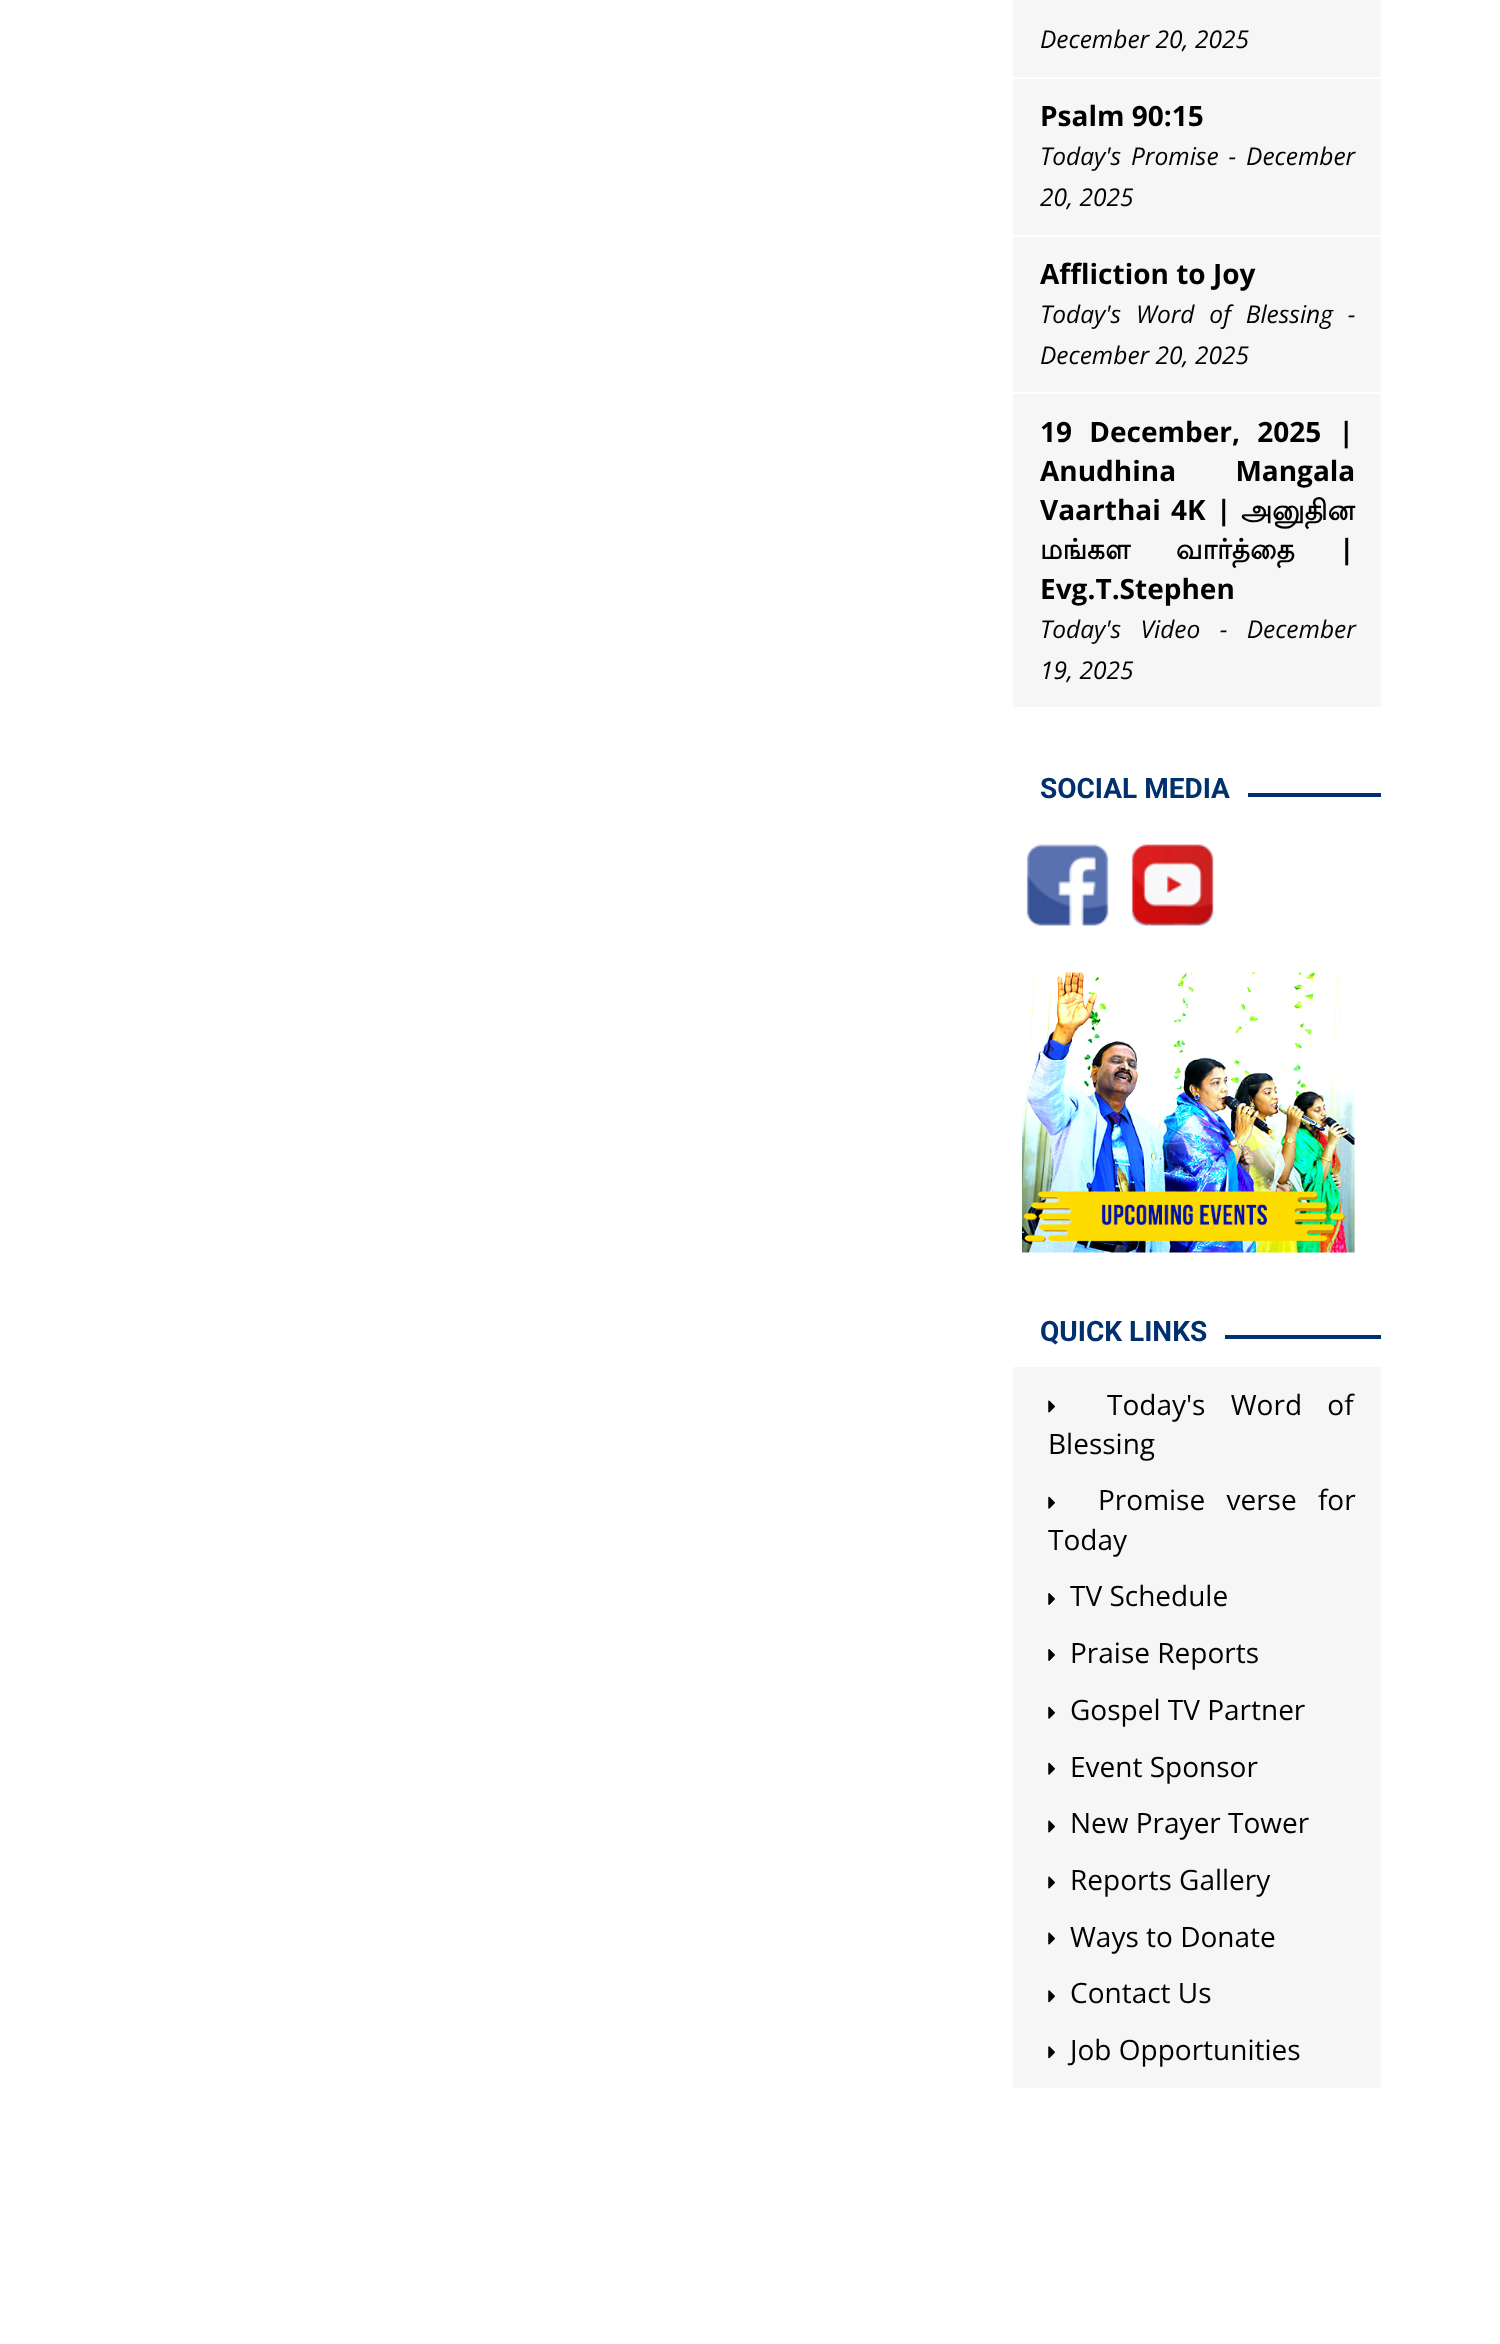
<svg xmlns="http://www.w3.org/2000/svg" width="1500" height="2344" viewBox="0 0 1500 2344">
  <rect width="100%" height="100%" fill="#fff"/>
  <path d="M1013 0h368v707H1013z" fill="#f6f6f6"/>
  <path d="M1013 77h368v2H1013z" fill="#fff"/>
  <path d="M1013 235h368v2H1013z" fill="#fff"/>
  <path d="M1013 392h368v2H1013z" fill="#fff"/>
  <path d="M1248 793h133v4H1248z" fill="#00306d"/>
  <image x="1026" y="844" width="83" height="82" href="img/1.png"/>
  <image x="1131" y="844" width="83" height="82" href="img/2.png"/>
  <image x="1022" y="972" width="333" height="281" href="img/3.png"/>
  <path d="M1225 1335h156v4H1225z" fill="#00306d"/>
  <path d="M1013 1367h368v721H1013z" fill="#f6f6f6"/>
  <image x="1048" y="1400" width="7" height="13" href="img/4.png"/>
  <image x="1048" y="1496" width="7" height="13" href="img/5.png"/>
  <image x="1048" y="1593" width="7" height="12" href="img/6.png"/>
  <image x="1048" y="1649" width="7" height="12" href="img/6.png"/>
  <image x="1048" y="1706" width="7" height="13" href="img/5.png"/>
  <image x="1048" y="1762" width="7" height="13" href="img/5.png"/>
  <image x="1048" y="1820" width="7" height="13" href="img/4.png"/>
  <image x="1048" y="1876" width="7" height="13" href="img/4.png"/>
  <image x="1048" y="1932" width="7" height="13" href="img/4.png"/>
  <image x="1048" y="1990" width="7" height="13" href="img/7.png"/>
  <image x="1048" y="2046" width="7" height="13" href="img/7.png"/>
  <text x="1040" y="48" font-family="Open Sans" font-size="24.5" font-style="italic" fill="#000">December 20, 2025</text>
  <text x="1040" y="126" font-family="Open Sans" font-size="28" font-weight="bold" fill="#000">Psalm 90:15</text>
  <g font-family="Open Sans" font-size="24.5" font-style="italic" fill="#000">
    <text x="1040" y="165" word-spacing="3.5">Today's Promise - December</text>
    <text x="1040" y="206">20, 2025</text>
  </g>
  <text x="1040" y="284" font-family="Open Sans" font-size="28" font-weight="bold" fill="#000">Affliction to Joy</text>
  <g font-family="Open Sans" font-size="24.5" font-style="italic" fill="#000">
    <text x="1040" y="323" word-spacing="8.5">Today's Word of Blessing -</text>
    <text x="1040" y="364">December 20, 2025</text>
  </g>
  <g font-family="Open Sans" font-size="28" font-weight="bold" fill="#000">
    <text x="1040" y="442" word-spacing="10">19 December, 2025 |</text>
    <text x="1040" y="481" word-spacing="52">Anudhina Mangala</text>
    <text x="1040" y="520" word-spacing="3">Vaarthai 4K |</text>
  </g>
  <g font-family="Lohit Tamil" font-size="28" font-weight="bold" fill="#000">
    <text x="1241" y="520">அனுதின</text>
    <text x="1040" y="559" word-spacing="37">மங்கள வார்த்தை</text>
  </g>
  <g font-family="Open Sans" font-size="28" font-weight="bold" fill="#000">
    <text x="1339" y="559">|</text>
    <text x="1040" y="599">Evg.T.Stephen</text>
  </g>
  <g font-family="Open Sans" font-size="24.5" font-style="italic" fill="#000">
    <text x="1040" y="638" word-spacing="13">Today's Video - December</text>
    <text x="1040" y="679">19, 2025</text>
  </g>
  <g font-family="Roboto" font-size="28" font-weight="bold" fill="#00306d">
    <text x="1040" y="798">SOCIAL MEDIA</text>
    <text x="1040" y="1341">QUICK LINKS</text>
  </g>
  <g font-family="Open Sans" font-size="28" fill="#000">
    <text x="1107" y="1415" word-spacing="18">Today's Word of</text>
    <text x="1048" y="1454">Blessing</text>
    <text x="1098" y="1510" word-spacing="14">Promise verse for</text>
    <text x="1048" y="1550">Today</text>
    <text x="1070" y="1606">TV Schedule</text>
    <text x="1070" y="1663">Praise Reports</text>
    <text x="1070" y="1720">Gospel TV Partner</text>
    <text x="1070" y="1777">Event Sponsor</text>
    <text x="1070" y="1833">New Prayer Tower</text>
    <text x="1070" y="1890">Reports Gallery</text>
    <text x="1070" y="1947">Ways to Donate</text>
    <text x="1070" y="2003">Contact Us</text>
    <text x="1070" y="2060">Job Opportunities</text>
  </g>
</svg>
